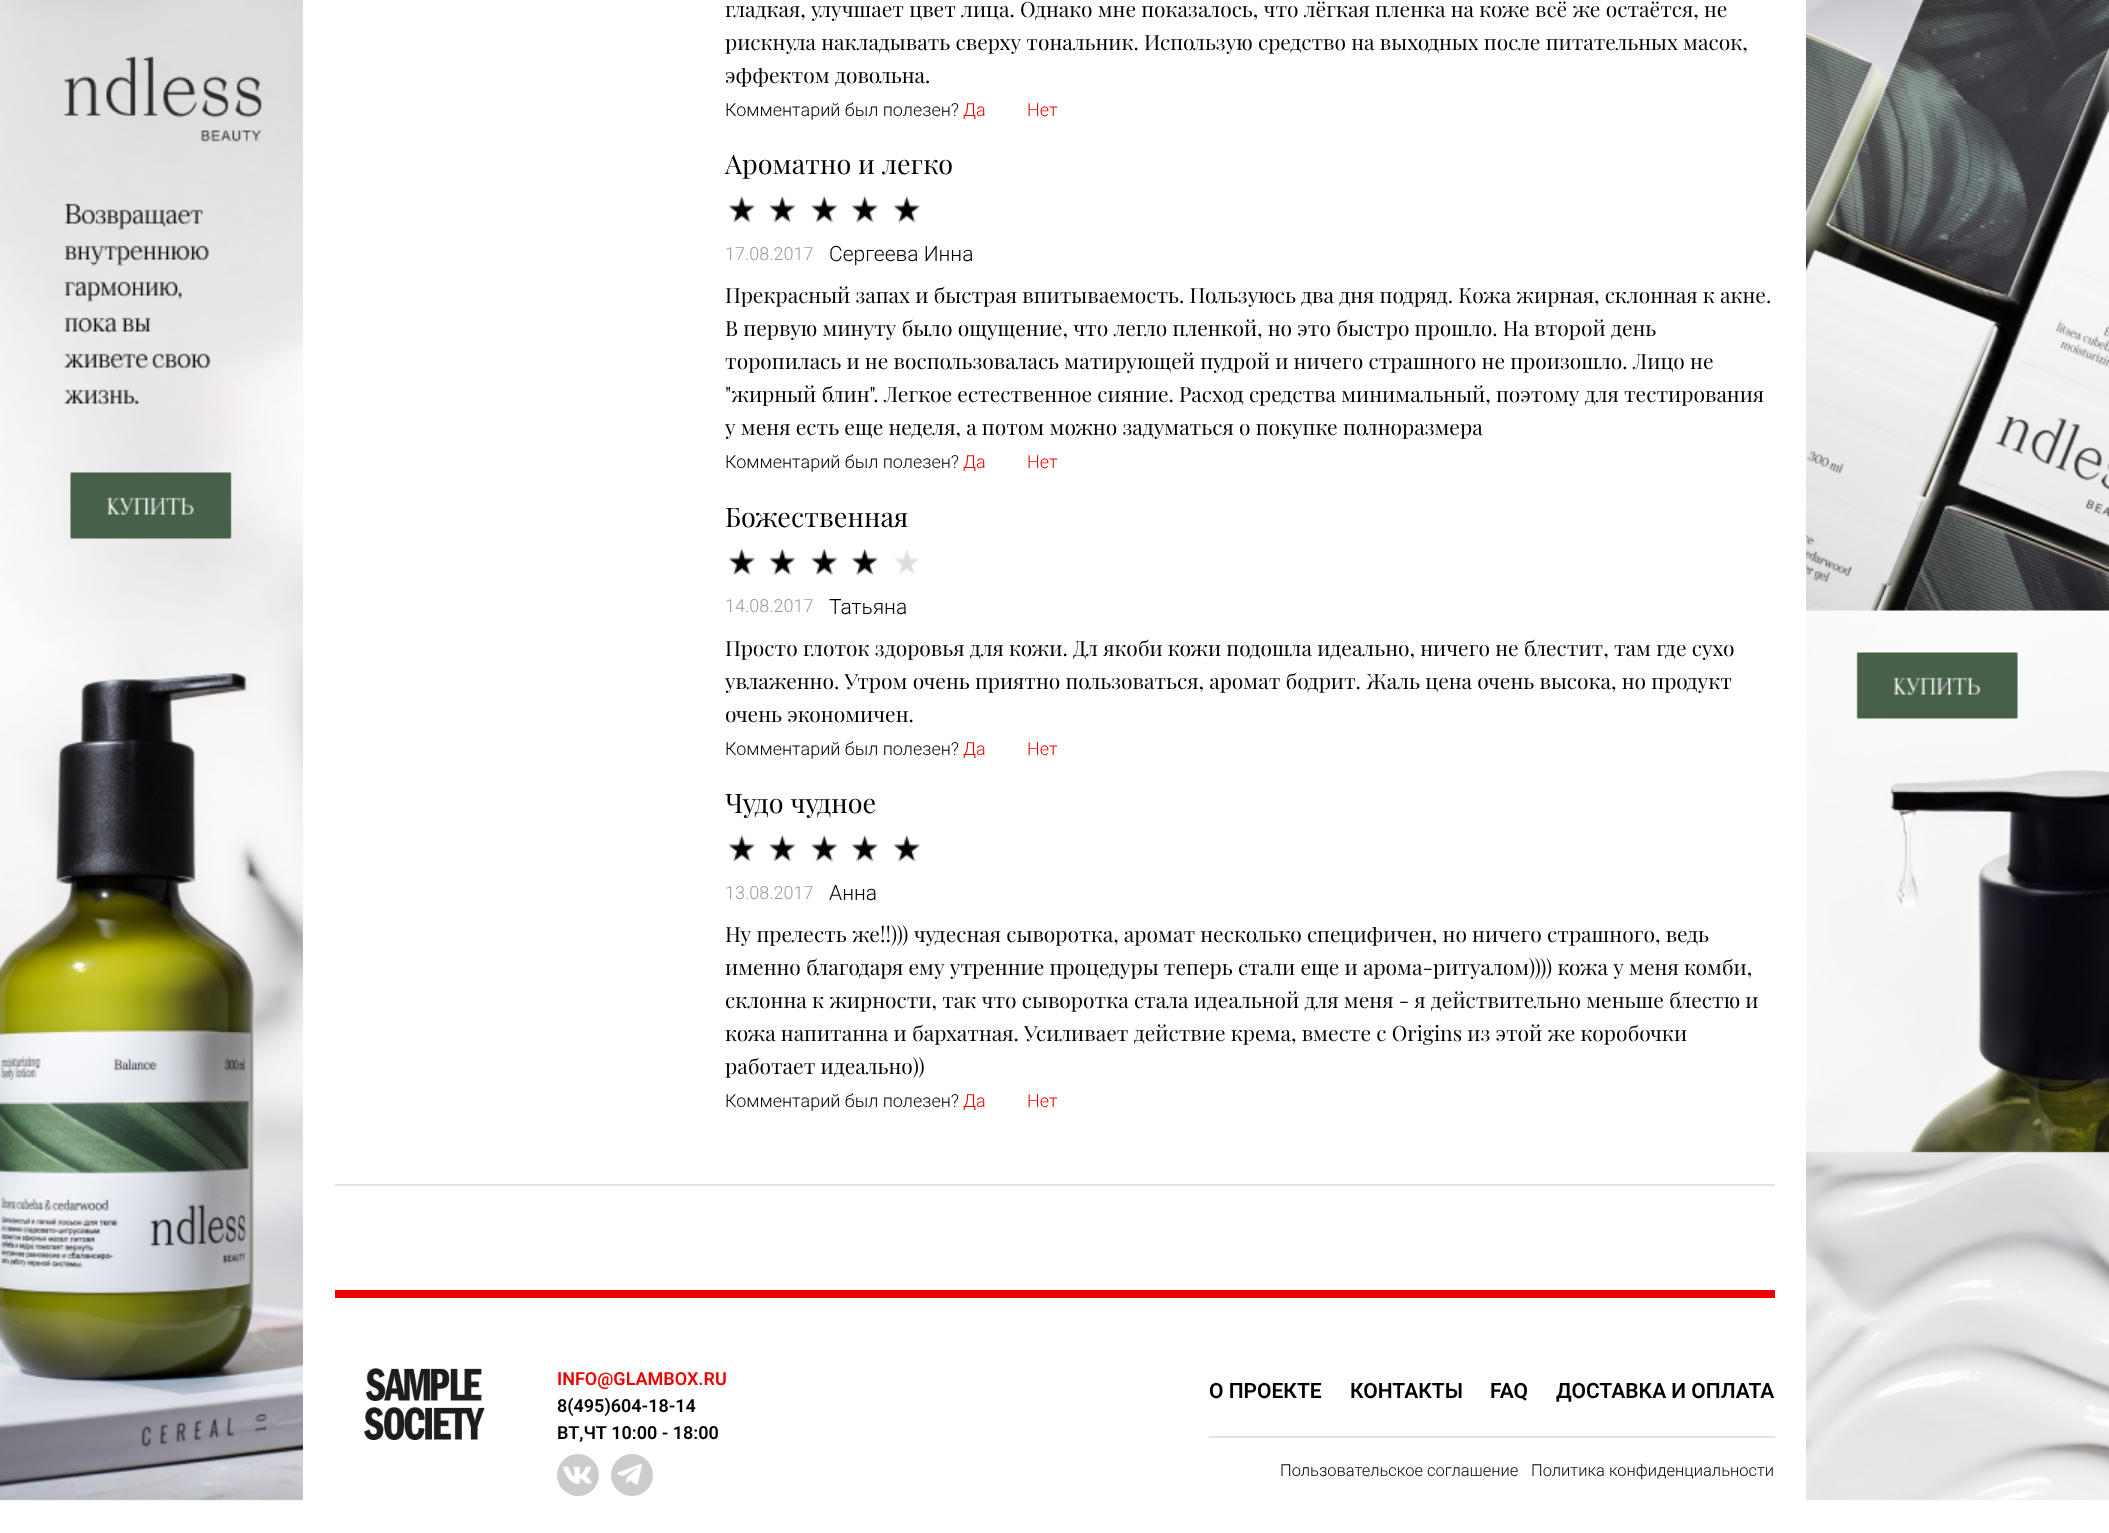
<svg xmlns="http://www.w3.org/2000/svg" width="2109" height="1533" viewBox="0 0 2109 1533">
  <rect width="100%" height="100%" fill="#fff"/>
  <image x="0" y="0" width="2109" height="1501" href="img/1.png"/>
  <path d="M303 0h1503v1501H303z" fill="#fff"/>
  <image x="728" y="196" width="27" height="27" href="img/2.png"/>
  <image x="769" y="196" width="27" height="27" href="img/3.png"/>
  <image x="811" y="196" width="27" height="27" href="img/3.png"/>
  <image x="851" y="196" width="27" height="27" href="img/4.png"/>
  <image x="893" y="196" width="27" height="27" href="img/4.png"/>
  <image x="728" y="548" width="27" height="27" href="img/5.png"/>
  <image x="769" y="548" width="27" height="27" href="img/6.png"/>
  <image x="811" y="548" width="27" height="27" href="img/6.png"/>
  <image x="851" y="548" width="27" height="27" href="img/7.png"/>
  <image x="894" y="549" width="26" height="26" href="img/8.png"/>
  <image x="728" y="835" width="27" height="27" href="img/2.png"/>
  <image x="769" y="835" width="27" height="27" href="img/3.png"/>
  <image x="811" y="835" width="27" height="27" href="img/3.png"/>
  <image x="851" y="835" width="27" height="27" href="img/4.png"/>
  <image x="893" y="835" width="27" height="27" href="img/4.png"/>
  <path d="M335 1184h1440v2H335z" fill="#e2e2e2"/>
  <path d="M335 1290h1440v8H335z" fill="#ed0000"/>
  <image x="364" y="1368" width="121" height="72" href="img/9.png"/>
  <circle cx="578" cy="1475" r="21" fill="#ccc"/>
  <image x="562" y="1466" width="31" height="18" href="img/10.png"/>
  <circle cx="632" cy="1475" r="21" fill="#ccc"/>
  <image x="616" y="1463" width="27" height="22" href="img/11.png"/>
  <path d="M1209 1436h566v2H1209z" fill="#e2e2e2"/>
  <g font-family="Playfair Display" font-size="21" fill="#000">
    <text x="725" y="17">гладкая, улучшает цвет лица. Однако мне показалось, что лёгкая пленка на коже всё же остаётся, не</text>
    <text x="725" y="50">рискнула накладывать сверху тональник. Использую средство на выходных после питательных масок,</text>
    <text x="725" y="83">эффектом довольна.</text>
  </g>
  <text x="725" y="116" font-family="Roboto" font-size="18" font-weight="300" fill="#000">Комментарий был полезен?</text>
  <g font-family="Roboto" font-size="18" font-weight="300" fill="#ed0000">
    <text x="963" y="116">Да</text>
    <text x="1027" y="116">Нет</text>
  </g>
  <text x="725" y="174" font-family="Playfair Display" font-size="27" fill="#000">Ароматно и легко</text>
  <text x="725" y="260" font-family="Roboto" font-size="18" font-weight="300" fill="#9a9a9a">17.08.2017</text>
  <text x="829" y="261" font-family="Roboto" font-size="21" font-weight="300" fill="#000">Сергеева Инна</text>
  <g font-family="Playfair Display" font-size="21" fill="#000">
    <text x="725" y="303">Прекрасный запах и быстрая впитываемость. Пользуюсь два дня подряд. Кожа жирная, склонная к акне.</text>
    <text x="725" y="336">В первую минуту было ощущение, что легло пленкой, но это быстро прошло. На второй день</text>
    <text x="725" y="369">торопилась и не воспользовалась матирующей пудрой и ничего страшного не произошло. Лицо не</text>
    <text x="725" y="402">"жирный блин". Легкое естественное сияние. Расход средства минимальный, поэтому для тестирования</text>
    <text x="725" y="435">у меня есть еще неделя, а потом можно задуматься о покупке полноразмера</text>
  </g>
  <text x="725" y="468" font-family="Roboto" font-size="18" font-weight="300" fill="#000">Комментарий был полезен?</text>
  <g font-family="Roboto" font-size="18" font-weight="300" fill="#ed0000">
    <text x="963" y="468">Да</text>
    <text x="1027" y="468">Нет</text>
  </g>
  <text x="725" y="527" font-family="Playfair Display" font-size="27" fill="#000">Божественная</text>
  <text x="725" y="612" font-family="Roboto" font-size="18" font-weight="300" fill="#9a9a9a">14.08.2017</text>
  <text x="829" y="614" font-family="Roboto" font-size="21" font-weight="300" fill="#000">Татьяна</text>
  <g font-family="Playfair Display" font-size="21" fill="#000">
    <text x="725" y="656">Просто глоток здоровья для кожи. Дл якоби кожи подошла идеально, ничего не блестит, там где сухо</text>
    <text x="725" y="689">увлаженно. Утром очень приятно пользоваться, аромат бодрит. Жаль цена очень высока, но продукт</text>
    <text x="725" y="722">очень экономичен.</text>
  </g>
  <text x="725" y="755" font-family="Roboto" font-size="18" font-weight="300" fill="#000">Комментарий был полезен?</text>
  <g font-family="Roboto" font-size="18" font-weight="300" fill="#ed0000">
    <text x="963" y="755">Да</text>
    <text x="1027" y="755">Нет</text>
  </g>
  <text x="725" y="813" font-family="Playfair Display" font-size="27" fill="#000">Чудо чудное</text>
  <text x="725" y="899" font-family="Roboto" font-size="18" font-weight="300" fill="#9a9a9a">13.08.2017</text>
  <text x="829" y="900" font-family="Roboto" font-size="21" font-weight="300" fill="#000">Анна</text>
  <g font-family="Playfair Display" font-size="21" fill="#000">
    <text x="725" y="942">Ну прелесть же!!))) чудесная сыворотка, аромат несколько специфичен, но ничего страшного, ведь</text>
    <text x="725" y="975">именно благодаря ему утренние процедуры теперь стали еще и арома-ритуалом)))) кожа у меня комби,</text>
    <text x="725" y="1008">склонна к жирности, так что сыворотка стала идеальной для меня - я действительно меньше блестю и</text>
    <text x="725" y="1041">кожа напитанна и бархатная. Усиливает действие крема, вместе с Origins из этой же коробочки</text>
    <text x="725" y="1074">работает идеально))</text>
  </g>
  <text x="725" y="1107" font-family="Roboto" font-size="18" font-weight="300" fill="#000">Комментарий был полезен?</text>
  <g font-family="Roboto" font-size="18" font-weight="300" fill="#ed0000">
    <text x="963" y="1107">Да</text>
    <text x="1027" y="1107">Нет</text>
  </g>
  <text x="557" y="1385" font-family="Roboto" font-size="18" font-weight="600" fill="#ed0000">INFO@GLAMBOX.RU</text>
  <g font-family="Roboto" font-size="18" font-weight="600" fill="#000">
    <text x="557" y="1412">8(495)604-18-14</text>
    <text x="557" y="1439">ВТ,ЧТ 10:00 - 18:00</text>
  </g>
  <g font-family="Roboto" font-size="21" font-weight="600" fill="#000">
    <text x="1209" y="1398">О ПРОЕКТЕ</text>
    <text x="1350" y="1398">КОНТАКТЫ</text>
    <text x="1490" y="1398">FAQ</text>
    <text x="1556" y="1398">ДОСТАВКA И ОПЛАТА</text>
  </g>
  <g font-family="Roboto" font-size="16.5" font-weight="300" fill="#000">
    <text x="1280" y="1476">Пользовательское соглашение</text>
    <text x="1531" y="1476">Политика конфиденциальности</text>
  </g>
</svg>
